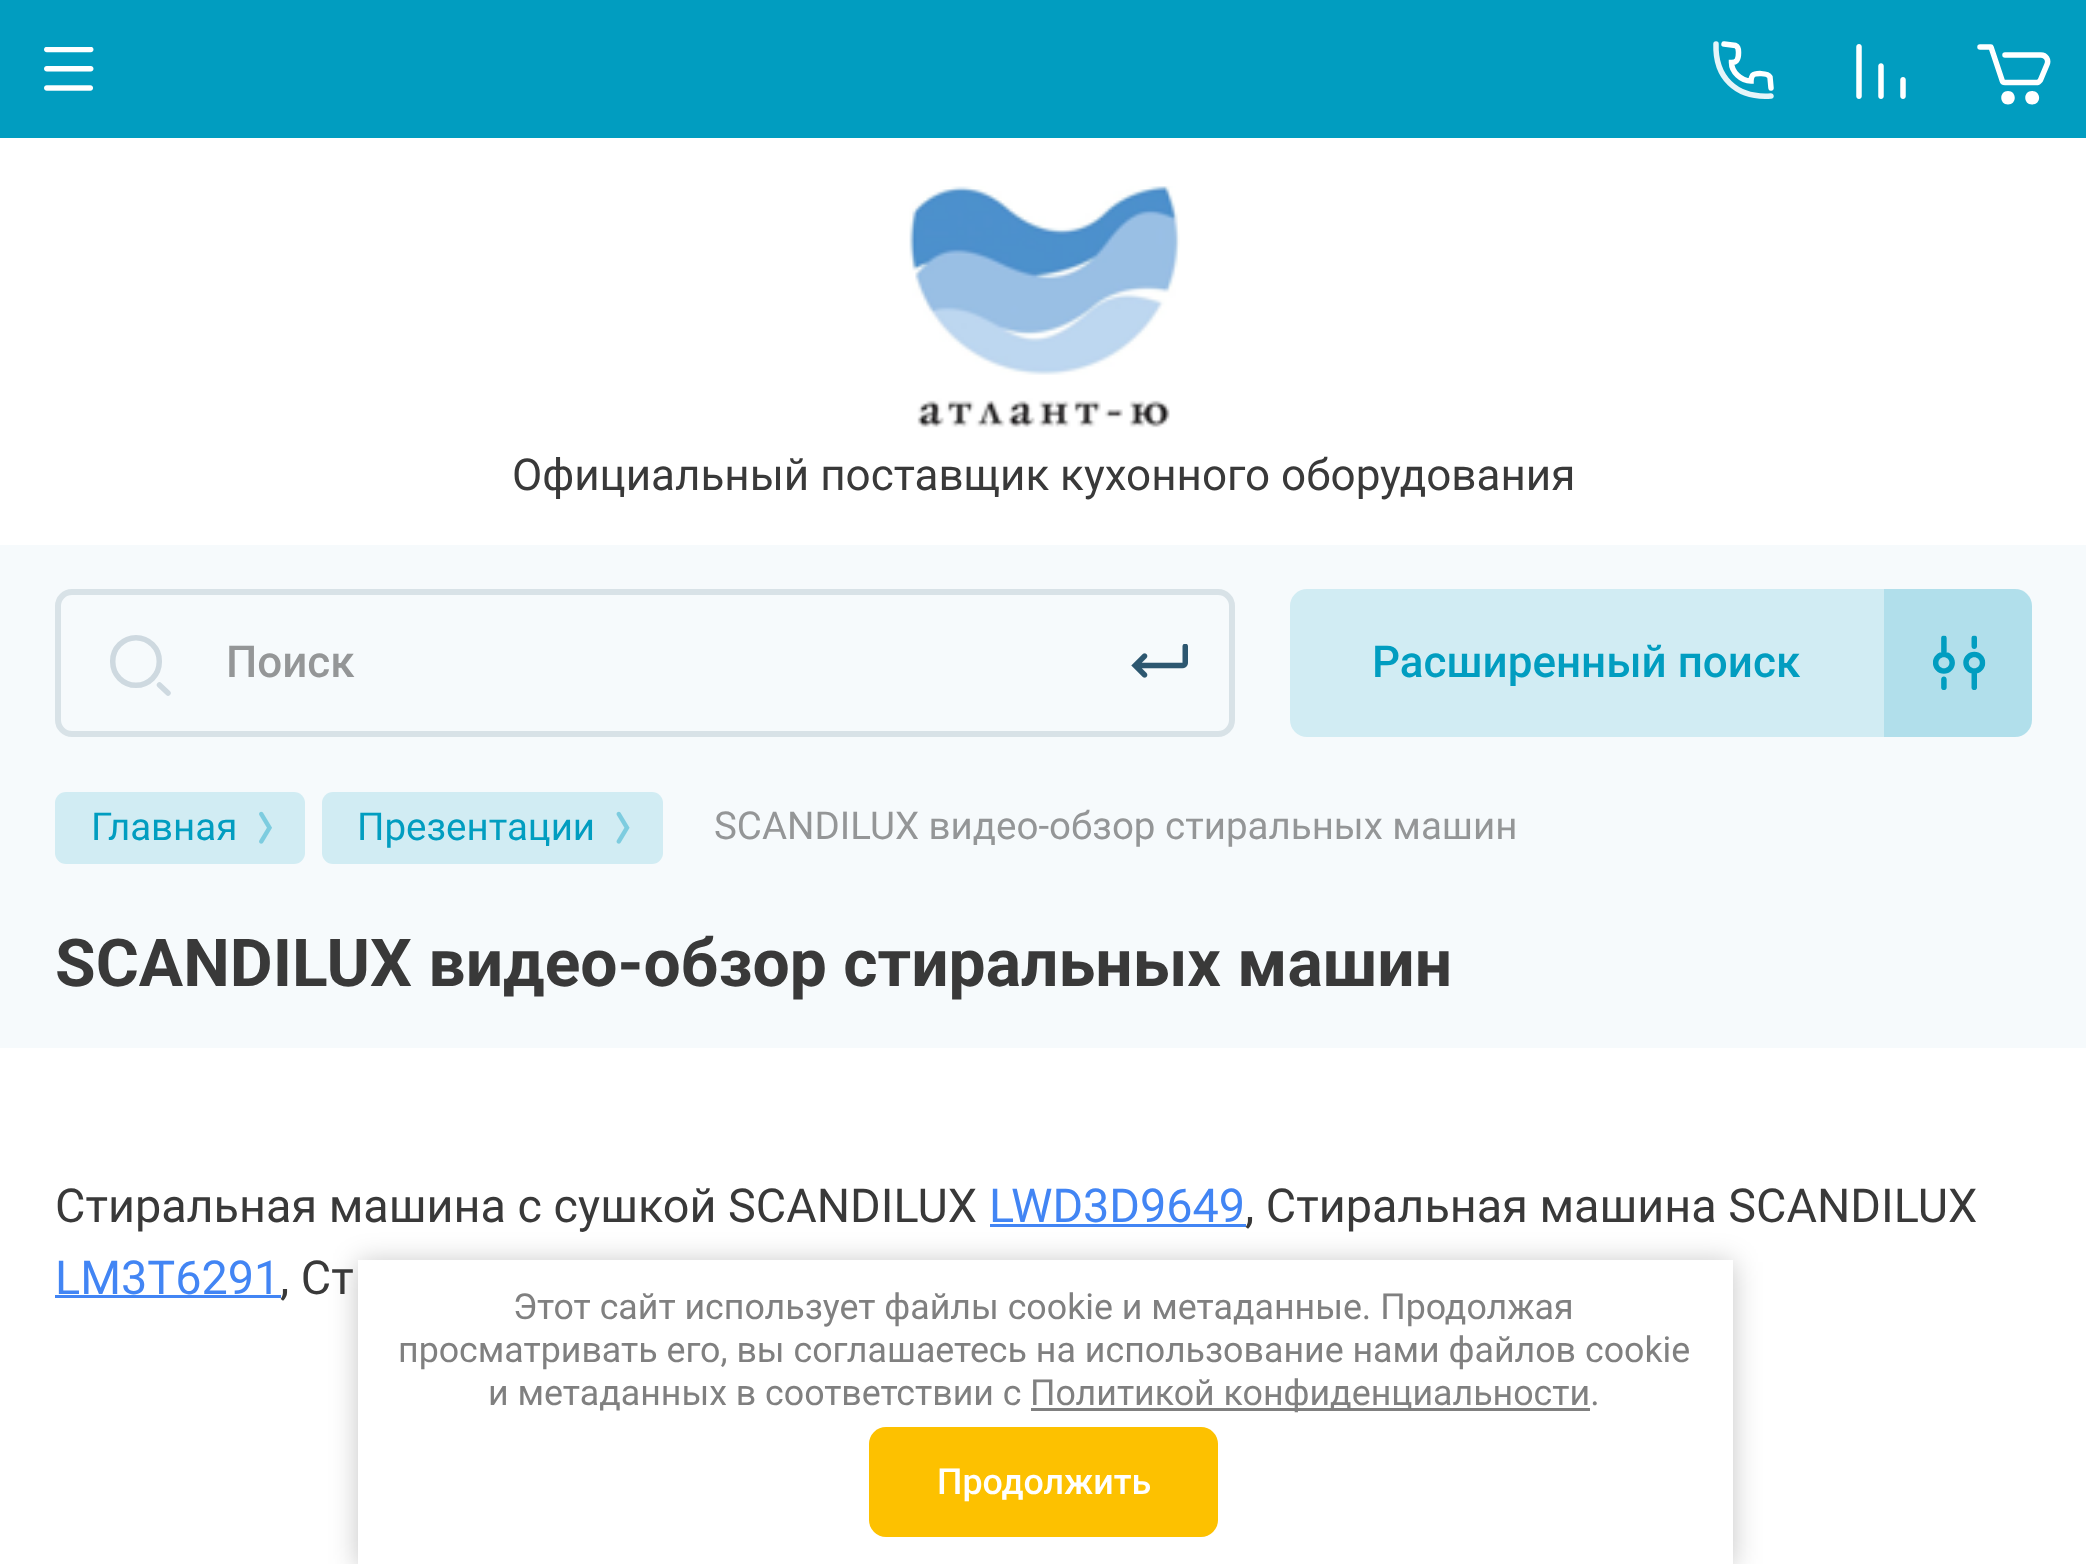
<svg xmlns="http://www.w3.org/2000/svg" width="2086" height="1564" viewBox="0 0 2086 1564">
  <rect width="100%" height="100%" fill="#f6fafc"/>
  <path d="M0 0h2086v138H0z" fill="#019dc0"/>
  <image x="44" y="47" width="50" height="44" href="img/1.png"/>
  <path d="M1716 44C1715 77 1735.5 98.5 1771 96" fill="none" stroke="#e6f5f9" stroke-width="5.5" stroke-linecap="round"/>
  <path d="M1771 88L1770 77C1767.5 72.5 1755 73 1752.5 75.5C1751.5 77 1751 79 1751 81C1741 81 1731.5 72 1731.5 62.5C1737.5 62.5 1738.5 58.5 1738.5 53C1738.5 50 1739 47 1735.5 45.5L1724 44" fill="none" stroke="#fff" stroke-width="5.5" stroke-linecap="round"/>
  <image x="1856" y="44" width="50" height="55" href="img/2.png"/>
  <path d="M2008 91C1999 91 1999 104.5 2008 104.5C2017 104.5 2017 91 2008 91ZM2032 91C2023 91 2023 104.5 2032 104.5C2041.5 104.5 2041.5 91 2032 91Z" fill="#fff" fill-rule="evenodd"/>
  <path d="M1980 47H1991L2002 80C2002.5 82 2003 82.5 2005 82.5H2038C2039 82.5 2039 81.5 2040.5 80L2047 64.5C2049 60 2046 55 2041 55H2005" fill="none" stroke="#fff" stroke-width="5.5" stroke-linecap="round" stroke-linejoin="round"/>
  <path d="M0 138h2086v407H0z" fill="#fff"/>
  <image x="909" y="186" width="271" height="242" href="img/3.png"/>
  <rect x="58" y="592" width="1174" height="142" rx="14" fill="none" stroke="#d8e2e7" stroke-width="6"/>
  <rect x="112.75" y="637.75" width="46.5" height="47.5" rx="23.25" fill="none" stroke="#ced9e0" stroke-width="5.5"/>
  <path d="M159.5 685L168 693" fill="none" stroke="#ced9e0" stroke-width="5.5" stroke-linecap="round"/>
  <image x="1131" y="644" width="57" height="34" href="img/4.png"/>
  <rect x="1290" y="589" width="742" height="148" rx="17" fill="#d1ecf3"/>
  <path d="M1884 589H2015C2024.5 589 2032 596.5 2032 606V720C2032 729.5 2024.5 737 2015 737H1884Z" fill="#019dc026"/>
  <image x="1933" y="635" width="53" height="55" href="img/5.png"/>
  <rect x="55" y="792" width="250" height="72" rx="11" fill="#d1ecf3"/>
  <image x="259" y="811" width="13" height="33" href="img/6.png"/>
  <rect x="322" y="792" width="341" height="72" rx="11" fill="#d1ecf3"/>
  <image x="616" y="811" width="14" height="33" href="img/7.png"/>
  <path d="M0 1048h2086v516H0z" fill="#fff"/>
  <path d="M990 1224h256v3H990z" fill="#4285f4"/>
  <path d="M55 1295h226v3H55z" fill="#4285f4"/>
  <path d="M358 1262h1375v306H358z" fill="#0000003b" filter="blur(14px)"/>
  <path d="M358 1260h1375v304H358z" fill="#fff"/>
  <path d="M1031 1408h559v3H1031z" fill="#808080"/>
  <rect x="869" y="1427" width="349" height="110" rx="17" fill="#fdc100"/>
  <text x="512" y="490" font-family="Roboto" font-size="44" fill="#393939">Официальный поставщик кухонного оборудования</text>
  <text x="226" y="677" font-family="Roboto" font-size="44" font-weight="500" fill="#949697">Поиск</text>
  <text x="1372" y="677" font-family="Roboto" font-size="44" font-weight="500" fill="#019dc0">Расширенный поиск</text>
  <g font-family="Roboto" font-size="38.5" fill="#019dc0">
    <text x="91" y="840">Главная</text>
    <text x="357" y="840">Презентации</text>
  </g>
  <text x="714" y="839" font-family="Roboto" font-size="38.5" fill="#949697">SCANDILUX видео-обзор стиральных машин</text>
  <text x="55" y="986" font-family="Roboto" font-size="66" font-weight="bold" fill="#393939">SCANDILUX видео-обзор стиральных машин</text>
  <text x="55" y="1222" font-family="Roboto" font-size="46.75" fill="#393939">Стиральная машина c сушкой SCANDILUX</text>
  <text x="989" y="1222" font-family="Roboto" font-size="46.75" fill="#4285f4">LWD3D9649</text>
  <text x="1245" y="1222" font-family="Roboto" font-size="46.75" fill="#393939">, Стиральная машина SCANDILUX</text>
  <text x="55" y="1294" font-family="Roboto" font-size="46.75" fill="#4285f4">LM3T6291</text>
  <text x="280" y="1294" font-family="Roboto" font-size="46.75" fill="#393939">, Ст</text>
  <g font-family="Roboto" font-size="35.75" fill="#808080">
    <text x="513" y="1319">Этот сайт использует файлы cookie и метаданные. Продолжая</text>
    <text x="398" y="1362">просматривать его, вы соглашаетесь на использование нами файлов cookie</text>
    <text x="488" y="1405">и метаданных в соответствии с</text>
    <text x="1030" y="1405">Политикой конфиденциальности.</text>
  </g>
  <text x="937" y="1494" font-family="Roboto" font-size="35.75" font-weight="500" fill="#fff">Продолжить</text>
</svg>
